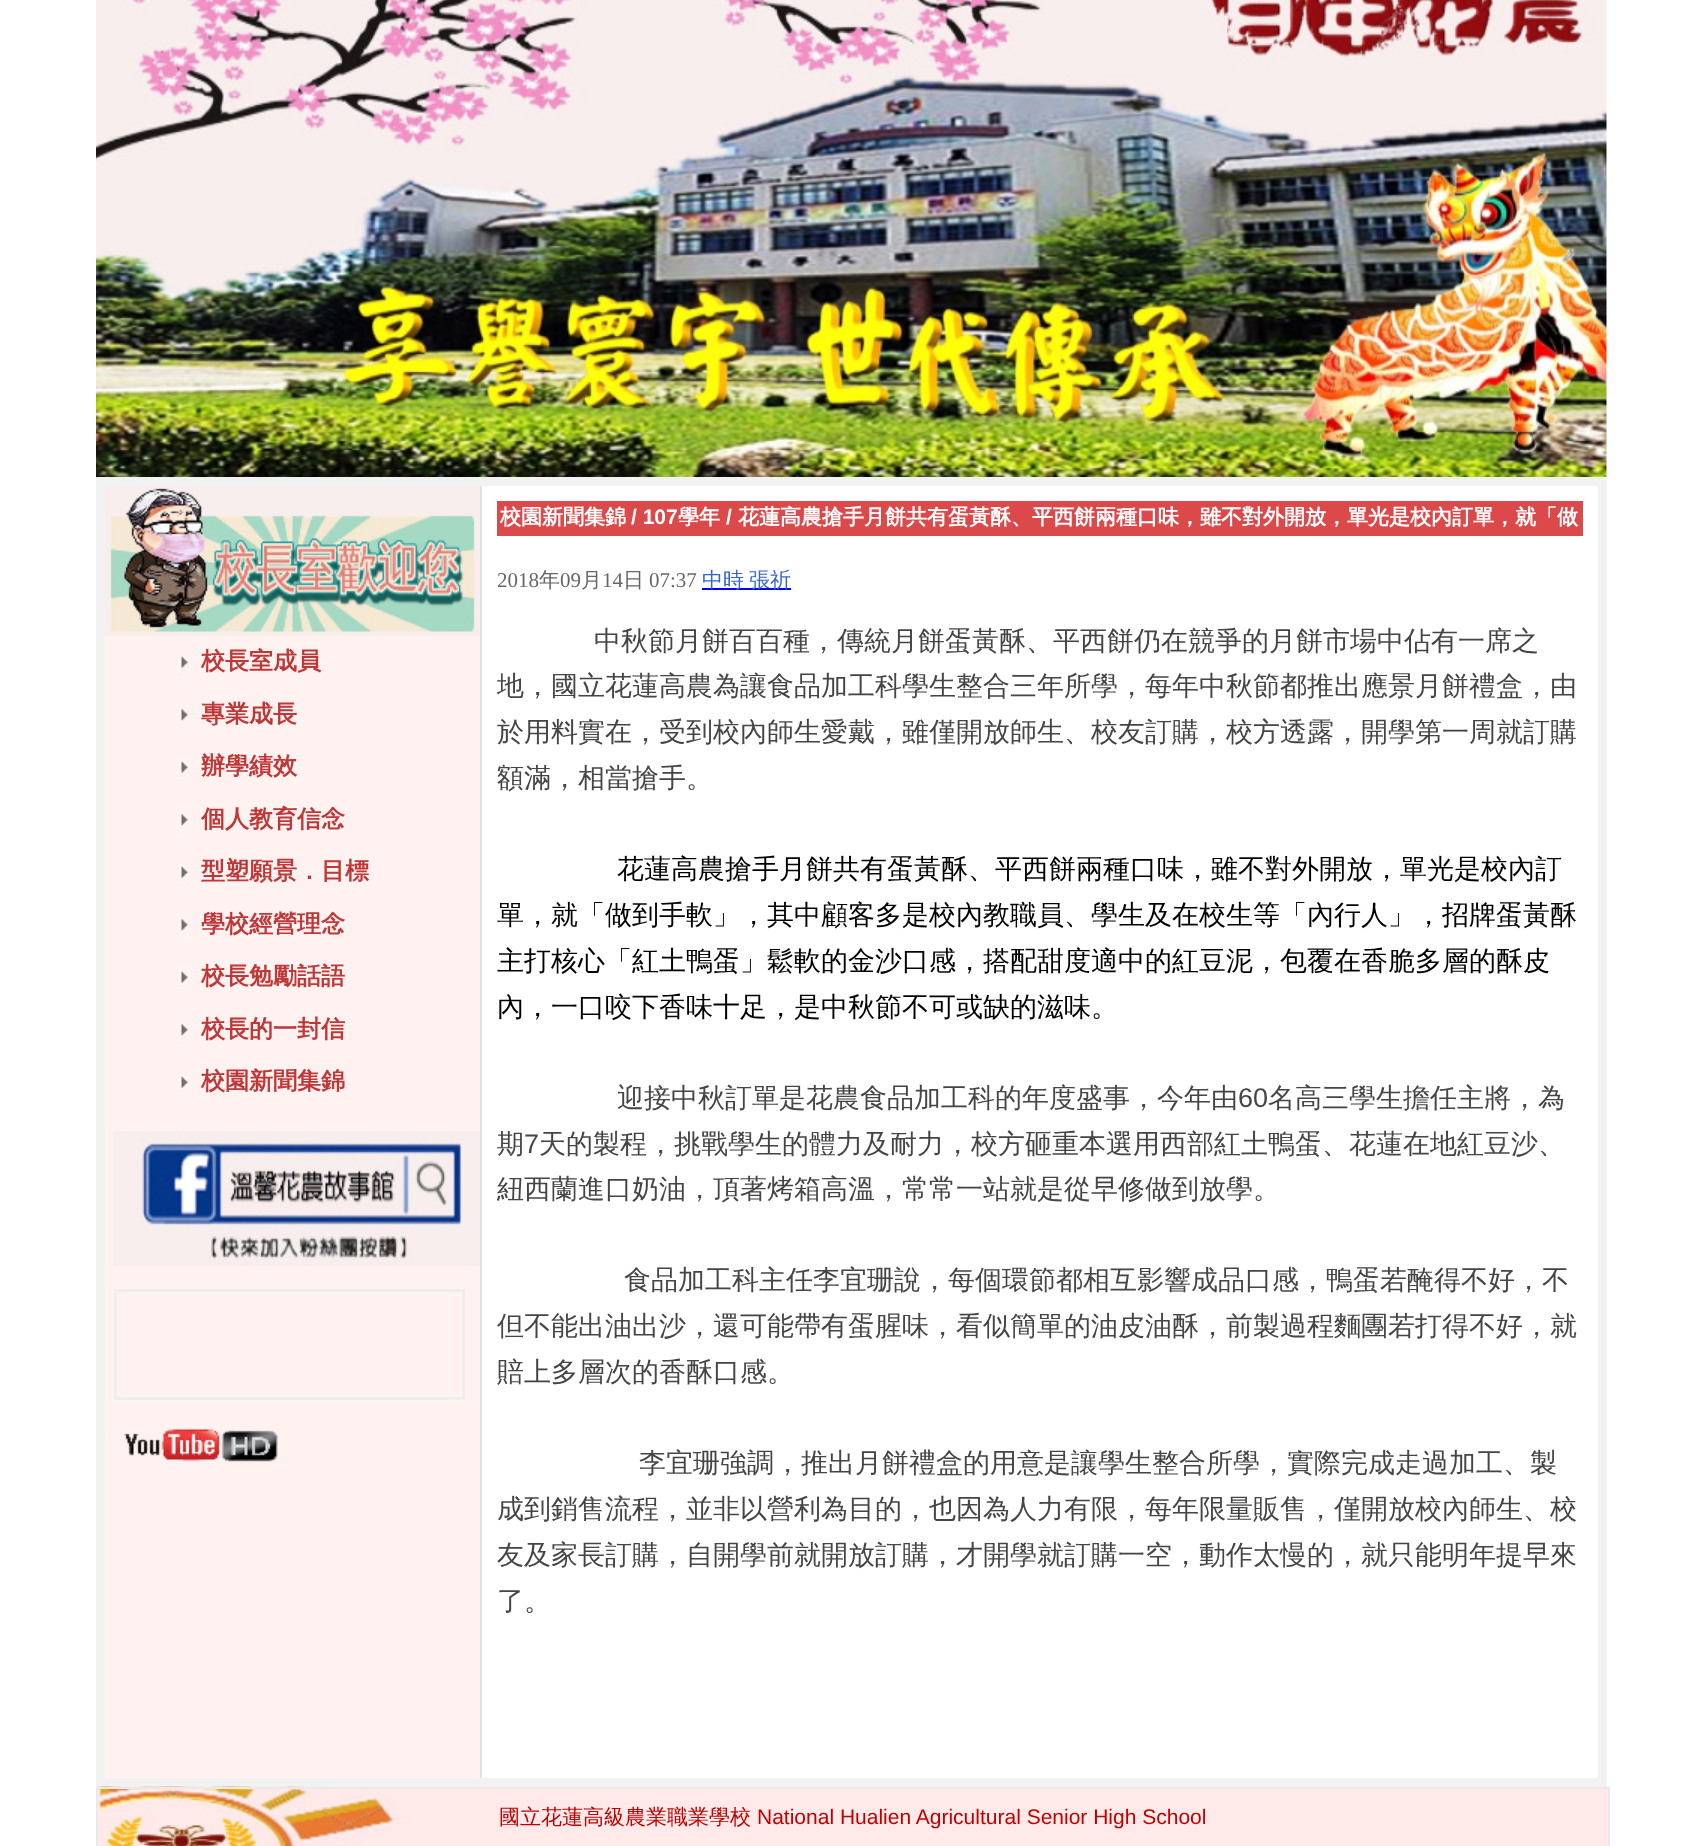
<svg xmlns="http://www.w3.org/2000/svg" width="1702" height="1846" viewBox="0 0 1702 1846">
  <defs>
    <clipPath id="clip1"><path d="M497 536h1086v1185H497z"/></clipPath>
  </defs>
  <rect width="100%" height="100%" fill="#fff"/>
  <image x="96" y="0" width="1511" height="477" href="img/1.png"/>
  <path d="M100.5 481.5h1502v1301H100.5z" fill="none" stroke="#f2f2f2" stroke-width="9"/>
  <path d="M105 636h375v645H105z" fill="#fff2f0"/>
  <image x="105" y="486" width="375" height="150" href="img/2.png"/>
  <image x="177" y="654" width="12" height="24" href="img/3.png"/>
  <image x="177" y="707" width="12" height="23" href="img/4.png"/>
  <image x="177" y="759" width="12" height="24" href="img/3.png"/>
  <image x="177" y="812" width="12" height="23" href="img/4.png"/>
  <image x="177" y="864" width="12" height="24" href="img/3.png"/>
  <image x="177" y="917" width="12" height="23" href="img/4.png"/>
  <image x="177" y="969" width="12" height="24" href="img/3.png"/>
  <image x="177" y="1022" width="12" height="23" href="img/4.png"/>
  <image x="177" y="1074" width="12" height="24" href="img/3.png"/>
  <image x="113" y="1131" width="367" height="135" href="img/5.png"/>
  <path d="M105 1281h375v497H105z" fill="#fff2f0"/>
  <image x="124" y="1429" width="154" height="33" href="img/6.png"/>
  <path d="M115.5 1290.5h348v108H115.5z" fill="none" stroke="#eee" stroke-width="3"/>
  <path d="M480 486h2v1292H480z" fill="#e2e2e2"/>
  <path d="M497 501h1086v35H497z" fill="#dc494a"/>
  <path d="M702 588h89v2H702z" fill="#00e"/>
  <image x="96" y="1786" width="1514" height="60" href="img/7.png"/>
  <path d="M97 1788h1512v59H97z" fill="none" stroke="#e9e9e9" stroke-width="2"/>
  <g font-family="WenQuanYi Zen Hei" font-size="24" font-weight="bold" fill="#bf3737">
    <text x="201" y="669">校長室成員</text>
    <text x="201" y="722">專業成長</text>
    <text x="201" y="774">辦學績效</text>
    <text x="201" y="827">個人教育信念</text>
    <text x="201" y="879">型塑願景．目標</text>
    <text x="201" y="932">學校經營理念</text>
    <text x="201" y="984">校長勉勵話語</text>
    <text x="201" y="1037">校長的一封信</text>
    <text x="201" y="1089">校園新聞集錦</text>
  </g>
  <text x="500" y="524" font-family="WenQuanYi Zen Hei" font-size="21" font-weight="bold" fill="#fff">校園新聞集錦</text>
  <text x="631" y="524" font-family="Liberation Sans" font-size="21" font-weight="bold" fill="#fff">/ 107</text>
  <text x="678" y="524" font-family="WenQuanYi Zen Hei" font-size="21" font-weight="bold" fill="#fff">學年</text>
  <text x="726" y="524" font-family="Liberation Sans" font-size="21" font-weight="bold" fill="#fff">/</text>
  <text x="738" y="524" font-family="WenQuanYi Zen Hei" font-size="21" font-weight="bold" fill="#fff">花蓮高農搶手月餅共有蛋黃酥、平西餅兩種口味，雖不對外開放，單光是校內訂單，就「做</text>
  <text x="497" y="587" font-family="Liberation Serif" font-size="21" fill="#666">2018</text>
  <text x="539" y="587" font-family="WenQuanYi Zen Hei" font-size="21" font-weight="500" fill="#666">年</text>
  <text x="560" y="587" font-family="Liberation Serif" font-size="21" fill="#666">09</text>
  <text x="581" y="587" font-family="WenQuanYi Zen Hei" font-size="21" font-weight="500" fill="#666">月</text>
  <text x="602" y="587" font-family="Liberation Serif" font-size="21" fill="#666">14</text>
  <text x="623" y="587" font-family="WenQuanYi Zen Hei" font-size="21" font-weight="500" fill="#666">日</text>
  <text x="649" y="587" font-family="Liberation Serif" font-size="21" fill="#666">07:37</text>
  <g font-family="WenQuanYi Zen Hei" font-size="21" font-weight="500" fill="#36c">
    <text x="702" y="587">中時</text>
    <text x="749" y="587">張祈</text>
  </g>
  <text x="594" y="650" font-family="WenQuanYi Zen Hei" font-size="27" font-weight="500" fill="#454545">中秋節月餅百百種，傳統月餅蛋黃酥、平西餅仍在競爭的月餅市場中佔有一席之</text>
  <g clip-path="url(#clip1)">
    <text x="497" y="695" font-family="WenQuanYi Zen Hei" font-size="27" font-weight="500" fill="#454545">地，國立花蓮高農為讓食品加工科學生整合三年所學，每年中秋節都推出應景月餅禮盒，由</text>
  </g>
  <g font-family="WenQuanYi Zen Hei" font-size="27" font-weight="500" fill="#454545">
    <text x="497" y="741">於用料實在，受到校內師生愛戴，雖僅開放師生、校友訂購，校方透露，開學第一周就訂購</text>
    <text x="497" y="787">額滿，相當搶手。</text>
  </g>
  <g font-family="WenQuanYi Zen Hei" font-size="27" font-weight="500" fill="#000">
    <text x="617" y="878">花蓮高農搶手月餅共有蛋黃酥、平西餅兩種口味，雖不對外開放，單光是校內訂</text>
    <text x="497" y="924">單，就「做到手軟」，其中顧客多是校內教職員、學生及在校生等「內行人」，招牌蛋黃酥</text>
    <text x="497" y="970">主打核心「紅土鴨蛋」鬆軟的金沙口感，搭配甜度適中的紅豆泥，包覆在香脆多層的酥皮</text>
    <text x="497" y="1016">內，一口咬下香味十足，是中秋節不可或缺的滋味。</text>
  </g>
  <text x="617" y="1107" font-family="WenQuanYi Zen Hei" font-size="27" font-weight="500" fill="#454545">迎接中秋訂單是花農食品加工科的年度盛事，今年由</text>
  <text x="1238" y="1107" font-family="Liberation Sans" font-size="27" fill="#454545">60</text>
  <g font-family="WenQuanYi Zen Hei" font-size="27" font-weight="500" fill="#454545">
    <text x="1268" y="1107">名高三學生擔任主將，為</text>
    <text x="497" y="1153">期</text>
  </g>
  <text x="524" y="1153" font-family="Liberation Sans" font-size="27" fill="#454545">7</text>
  <text x="539" y="1153" font-family="WenQuanYi Zen Hei" font-size="27" font-weight="500" fill="#454545">天的製程，挑戰學生的體力及耐力，校方砸重本選用西部紅土鴨蛋、花蓮在地紅豆沙、</text>
  <g clip-path="url(#clip1)">
    <text x="497" y="1198" font-family="WenQuanYi Zen Hei" font-size="27" font-weight="500" fill="#454545">紐西蘭進口奶油，頂著烤箱高溫，常常一站就是從早修做到放學。</text>
  </g>
  <g font-family="WenQuanYi Zen Hei" font-size="27" font-weight="500" fill="#454545">
    <text x="624" y="1289">食品加工科主任李宜珊說，每個環節都相互影響成品口感，鴨蛋若醃得不好，不</text>
    <text x="497" y="1335">但不能出油出沙，還可能帶有蛋腥味，看似簡單的油皮油酥，前製過程麵團若打得不好，就</text>
    <text x="497" y="1381">賠上多層次的香酥口感。</text>
    <text x="639" y="1472">李宜珊強調，推出月餅禮盒的用意是讓學生整合所學，實際完成走過加工、製</text>
    <text x="497" y="1518">成到銷售流程，並非以營利為目的，也因為人力有限，每年限量販售，僅開放校內師生、校</text>
    <text x="497" y="1564">友及家長訂購，自開學前就開放訂購，才開學就訂購一空，動作太慢的，就只能明年提早來</text>
    <text x="497" y="1610">了。</text>
  </g>
  <text x="499" y="1824" font-family="WenQuanYi Zen Hei" font-size="21" font-weight="500" fill="#bf0000">國立花蓮高級農業職業學校</text>
  <text x="757" y="1824" font-family="Liberation Sans" font-size="21" fill="#bf0000">National Hualien Agricultural Senior High School</text>
</svg>
